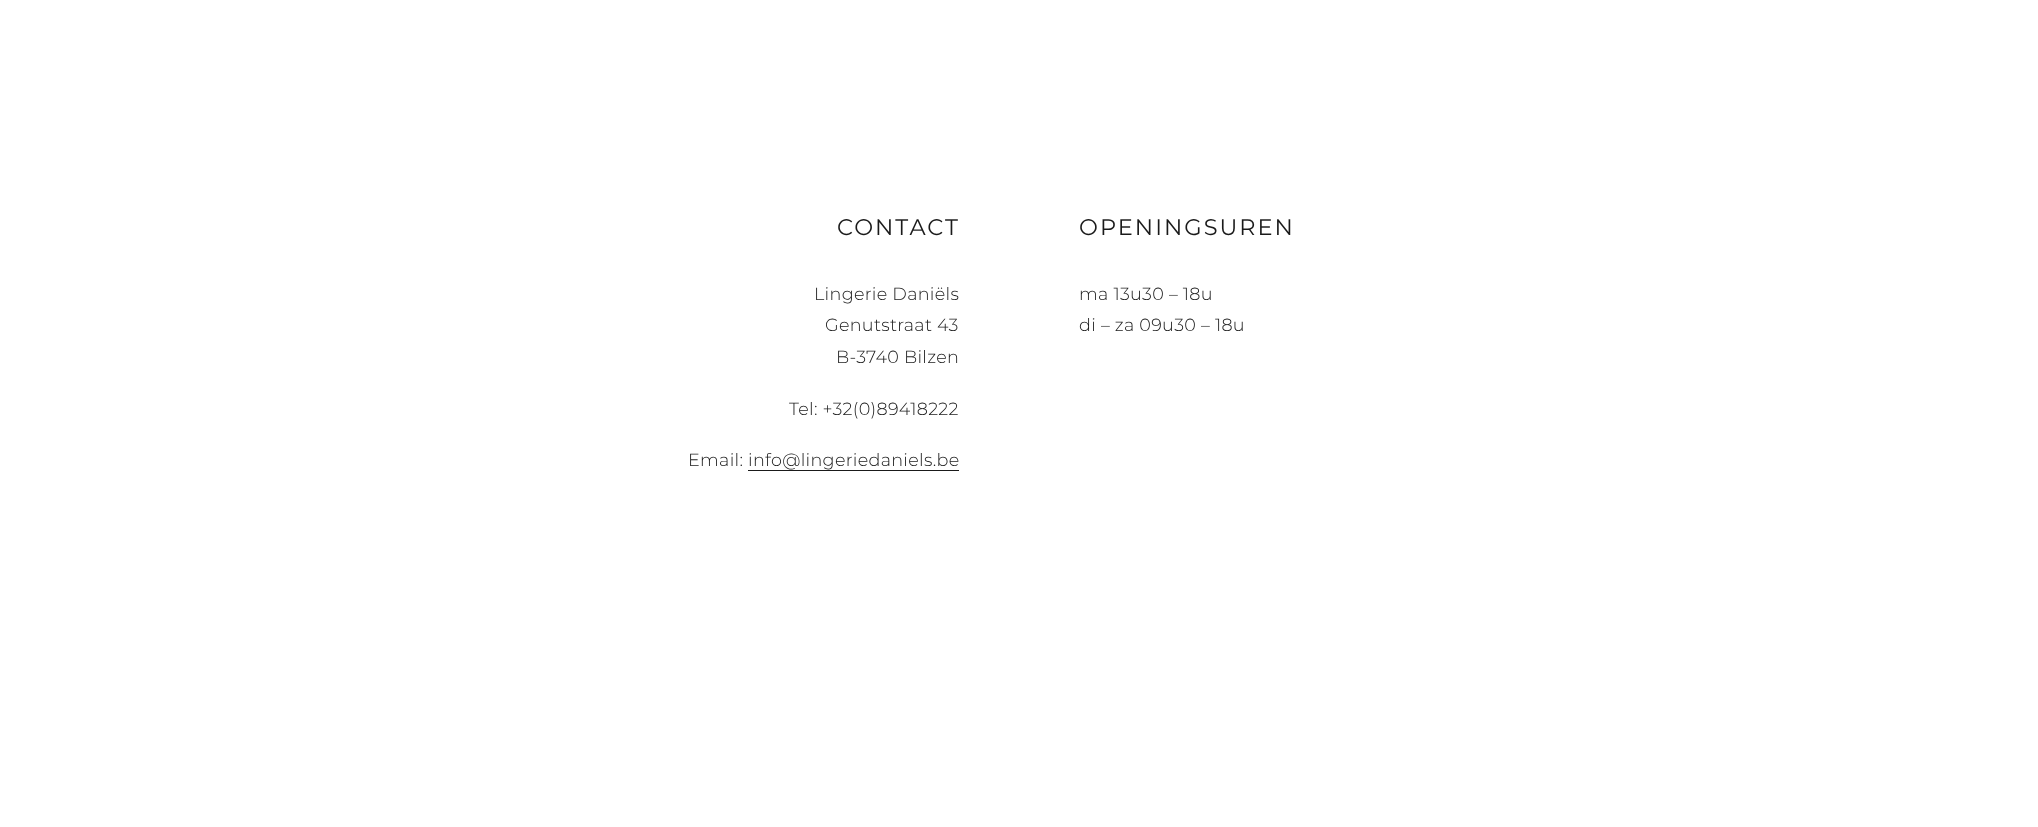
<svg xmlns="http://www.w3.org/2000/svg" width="2038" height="827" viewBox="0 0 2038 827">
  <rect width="100%" height="100%" fill="#fff"/>
  <path d="M748 470h211v1H748z" fill="#1a1a1a"/>
  <text x="837" y="235" font-family="Montserrat" font-size="22.5" letter-spacing="2" fill="#1a1a1a">CONTACT</text>
  <g font-family="Montserrat" font-size="17.6" font-weight="300" letter-spacing="0.3" fill="#1a1a1a">
    <text x="814" y="300">Lingerie Daniëls</text>
    <text x="825" y="331">Genutstraat 43</text>
    <text x="836" y="363">B-3740 Bilzen</text>
    <text x="789" y="415">Tel: +32(0)89418222</text>
    <text x="688" y="466">Email: info@lingeriedaniels.be</text>
  </g>
  <text x="1079" y="235" font-family="Montserrat" font-size="22.5" letter-spacing="2" fill="#1a1a1a">OPENINGSUREN</text>
  <g font-family="Montserrat" font-size="17.6" font-weight="300" letter-spacing="0.3" fill="#1a1a1a">
    <text x="1079" y="300">ma 13u30 – 18u</text>
    <text x="1079" y="331">di – za 09u30 – 18u</text>
  </g>
</svg>
